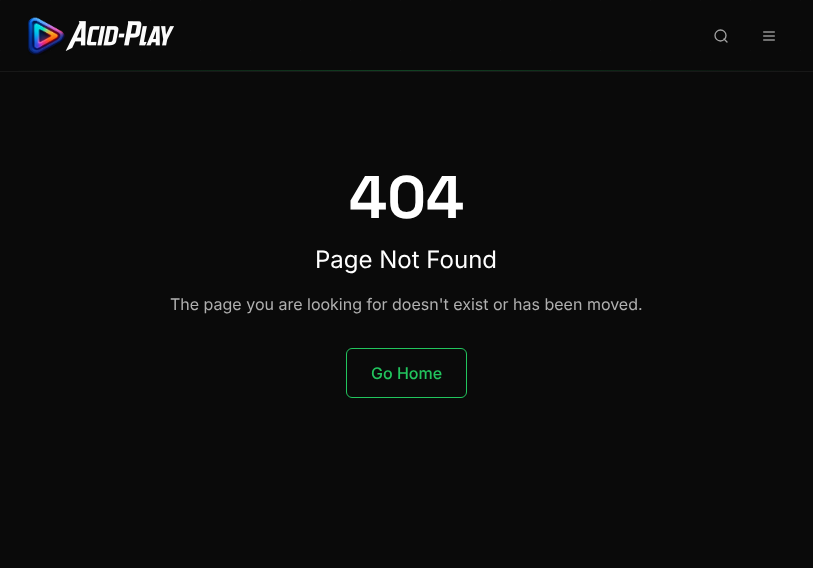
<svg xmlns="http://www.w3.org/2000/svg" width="813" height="568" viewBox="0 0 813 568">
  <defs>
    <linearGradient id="g1" gradientUnits="userSpaceOnUse" x1="0" y1="71" x2="813" y2="70"><stop offset="0" stop-color="#0a0a0a"/><stop offset="0.5" stop-color="#114223"/><stop offset="1" stop-color="#0a0a0a"/></linearGradient>
  </defs>
  <rect width="100%" height="100%" fill="#0a0a0a"/>
  <path d="M0 50h1v1H0z" fill="#0d0d0d"/>
  <path d="M0 0h1v1H0z" fill="#0d0d0d"/>
  <path d="M50 50h1v1H50z" fill="#0d0d0d"/>
  <path d="M50 0h1v1H50z" fill="#0d0d0d"/>
  <path d="M100 50h1v1H100z" fill="#0d0d0d"/>
  <path d="M100 0h1v1H100z" fill="#0d0d0d"/>
  <path d="M150 50h1v1H150z" fill="#0d0d0d"/>
  <path d="M150 0h1v1H150z" fill="#0d0d0d"/>
  <path d="M200 50h1v1H200z" fill="#0d0d0d"/>
  <path d="M200 0h1v1H200z" fill="#0d0d0d"/>
  <path d="M250 50h1v1H250z" fill="#0d0d0d"/>
  <path d="M250 0h1v1H250z" fill="#0d0d0d"/>
  <path d="M300 50h1v1H300z" fill="#0d0d0d"/>
  <path d="M300 0h1v1H300z" fill="#0d0d0d"/>
  <path d="M350 50h1v1H350z" fill="#0d0d0d"/>
  <path d="M350 0h1v1H350z" fill="#0d0d0d"/>
  <path d="M400 50h1v1H400z" fill="#0d0d0d"/>
  <path d="M400 0h1v1H400z" fill="#0d0d0d"/>
  <path d="M450 50h1v1H450z" fill="#0d0d0d"/>
  <path d="M450 0h1v1H450z" fill="#0d0d0d"/>
  <path d="M500 50h1v1H500z" fill="#0d0d0d"/>
  <path d="M500 0h1v1H500z" fill="#0d0d0d"/>
  <path d="M550 50h1v1H550z" fill="#0d0d0d"/>
  <path d="M550 0h1v1H550z" fill="#0d0d0d"/>
  <path d="M600 50h1v1H600z" fill="#0d0d0d"/>
  <path d="M600 0h1v1H600z" fill="#0d0d0d"/>
  <path d="M650 50h1v1H650z" fill="#0d0d0d"/>
  <path d="M650 0h1v1H650z" fill="#0d0d0d"/>
  <path d="M700 50h1v1H700z" fill="#0d0d0d"/>
  <path d="M700 0h1v1H700z" fill="#0d0d0d"/>
  <path d="M750 50h1v1H750z" fill="#0d0d0d"/>
  <path d="M750 0h1v1H750z" fill="#0d0d0d"/>
  <path d="M800 50h1v1H800z" fill="#0d0d0d"/>
  <path d="M800 0h1v1H800z" fill="#0d0d0d"/>
  <path d="M0 71h813v1H0z" fill="#181818"/>
  <image x="27" y="17" width="38" height="38" href="img/1.png"/>
  <image x="65" y="21" width="109" height="30" href="img/2.png"/>
  <circle cx="720.5" cy="35.5" r="5.5" fill="none" stroke="#a3a3a3" stroke-width="1.3"/>
  <path d="M727 42L724 39" fill="none" stroke="#a3a3a3" stroke-width="1.3" stroke-linecap="round" stroke-linejoin="round"/>
  <image x="763" y="31" width="12" height="10" href="img/3.png"/>
  <path d="M18 70h777v1H18z" fill="url(#g1)"/>
  <rect x="346.5" y="348.5" width="120" height="49" rx="5.5" fill="none" stroke="#22c55e"/>
  <text x="349" y="218" font-family="Space Grotesk" font-size="60" font-weight="bold" fill="#fff">404</text>
  <text x="315" y="268" font-family="Inter" font-size="24" fill="#fff">Page Not Found</text>
  <text x="170" y="310" font-family="Inter" font-size="16" fill="#b0b0b0">The page you are looking for doesn't exist or has been moved.</text>
  <text x="371" y="379" font-family="Inter" font-size="16" font-weight="500" fill="#22c55e">Go Home</text>
</svg>
